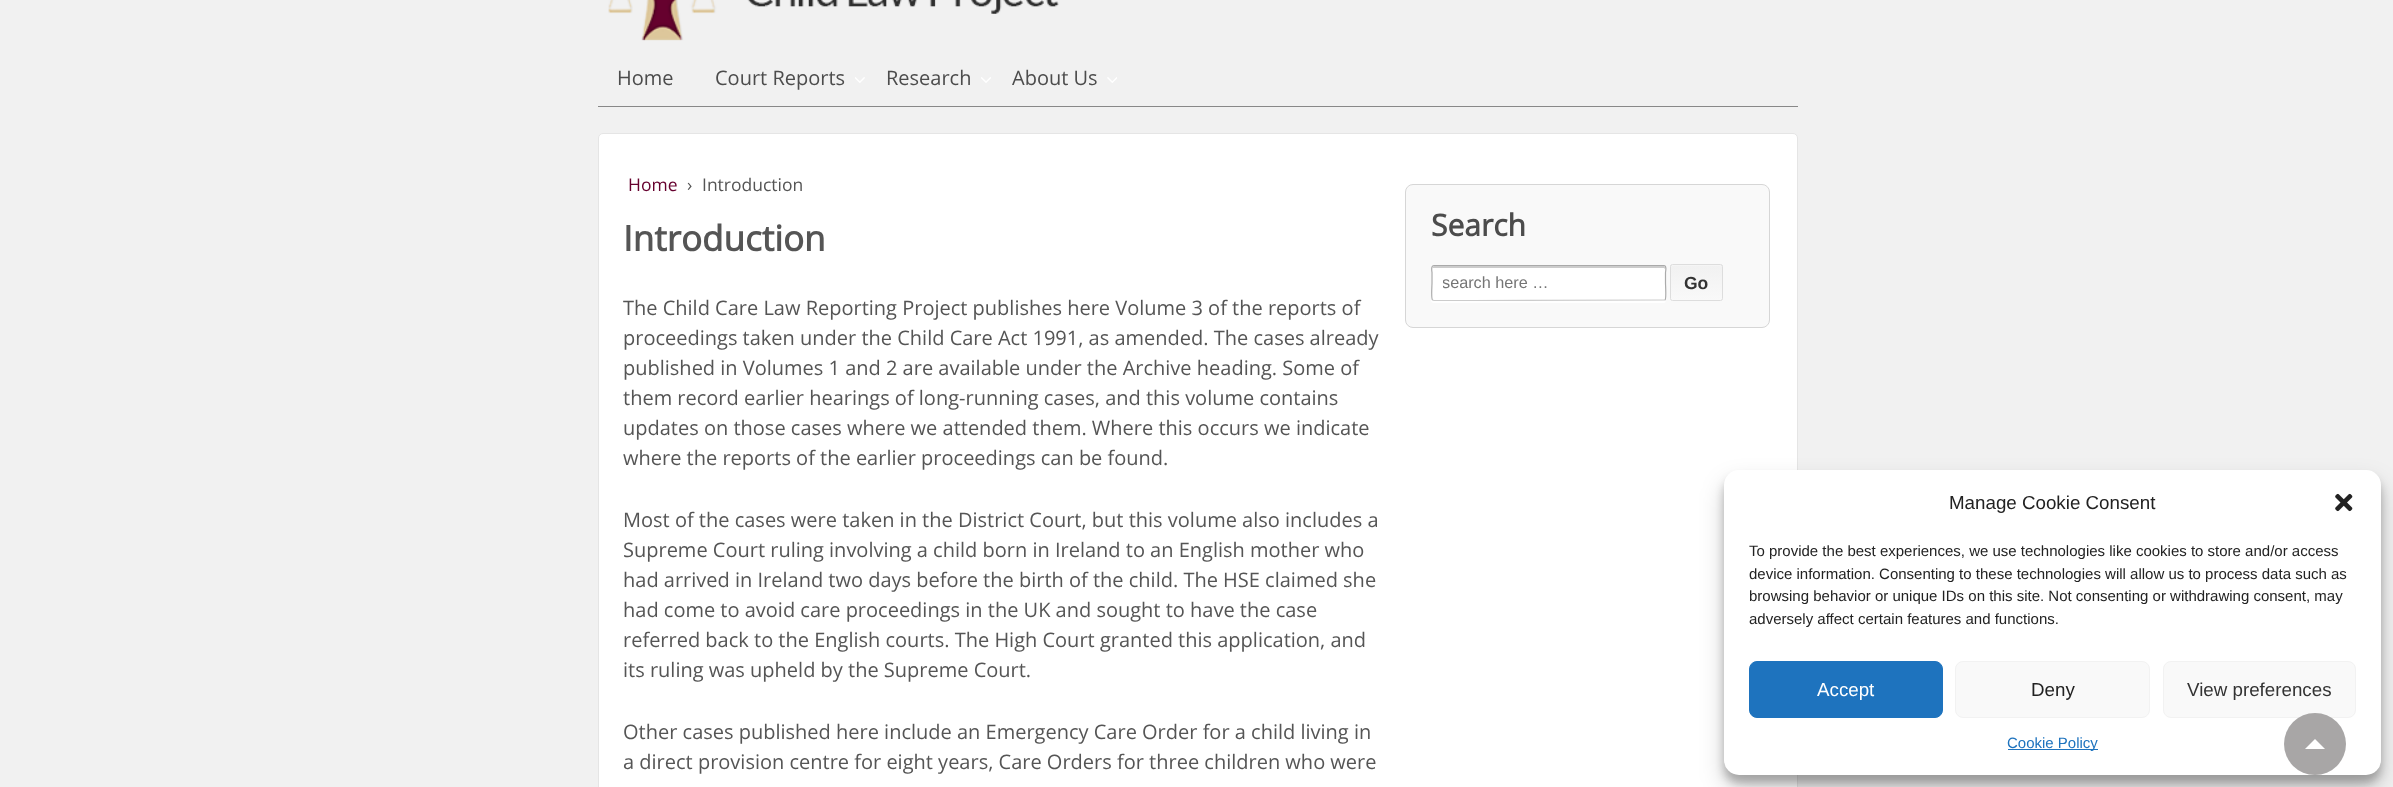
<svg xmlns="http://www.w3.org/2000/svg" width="2393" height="787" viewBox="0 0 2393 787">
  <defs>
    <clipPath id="clip1"><rect x="1670" y="264" width="53" height="37" rx="2.5"/></clipPath>
    <linearGradient id="g1" gradientUnits="userSpaceOnUse" x1="1696" y1="300" x2="1696" y2="265"><stop offset="0" stop-color="#f9f9f9"/><stop offset="1" stop-color="#f1f1f1"/></linearGradient>
    <clipPath id="clip2"><path d="M1443 274h212v19H1443z"/></clipPath>
  </defs>
  <rect width="100%" height="100%" fill="#f1f1f1"/>
  <image x="608" y="0" width="451" height="41" href="img/1.png"/>
  <path d="M598 106h1200v1H598z" fill="#888"/>
  <image x="855" y="77" width="10" height="6" href="img/2.png"/>
  <image x="981" y="77" width="10" height="6" href="img/3.png"/>
  <image x="1107" y="77" width="10" height="6" href="img/4.png"/>
  <rect x="598.5" y="133.5" width="1199" height="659" rx="4.5" fill="#fff" stroke="#e5e5e5"/>
  <rect x="1405.5" y="184.5" width="364" height="143" rx="7.5" fill="#f9f9f9" stroke="#d6d6d6"/>
  <path d="M1431 267V300C1431 302 1432 303 1434 303H1664C1665 303 1666 302 1666 300C1666 301 1665 301 1664 301H1434C1432 301 1431 300 1431 299Z" fill="#fff"/>
  <rect x="1431" y="265" width="235" height="36" rx="2.5" fill="#fff"/>
  <path d="M1434 266C1433 266 1433 267 1433 268H1664L1665 269C1665 268 1665 266 1664 266Z" fill="#ccc"/>
  <path d="M1665 300L1472 300.5H1434L1432.5 300" fill="none" stroke="#ccc" stroke-width="1.2"/>
  <path d="M1432.5 300C1431 298.5 1432 285.5 1432 283V272.5C1432 272 1430.5 265.5 1434 265.5H1664C1667 265.5 1665.5 272 1665.5 272.5V283C1665.5 285.5 1666.5 298.5 1665 300" fill="none" stroke="#aaa" stroke-width="1.2"/>
  <g clip-path="url(#clip1)">
    <path d="M1670 265h53v35H1670z" fill="url(#g1)"/>
  </g>
  <path d="M1672 266H1720L1721 268C1721 263 1719 265 1712 265H1672C1671 265 1671 266 1671 267Z" fill="#f5f5f5"/>
  <rect x="1670.5" y="264.5" width="52" height="36" rx="2" fill="none" stroke="#ddd"/>
  <rect x="1724" y="478" width="657" height="305" rx="15" fill="#0000003b" filter="blur(4px)"/>
  <rect x="1724" y="483" width="657" height="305" rx="15" fill="#00000030" filter="blur(12.5px)"/>
  <rect x="1724" y="470" width="657" height="305" rx="15" fill="#fff"/>
  <image x="2335" y="493" width="18" height="19" href="img/5.png"/>
  <rect x="1749.5" y="661.5" width="193" height="56" rx="7.5" fill="#1e73be" stroke="#1e73be"/>
  <rect x="1955.5" y="661.5" width="194" height="56" rx="7.5" fill="#f9f9f9" stroke="#f2f2f2"/>
  <rect x="2163.5" y="661.5" width="192" height="56" rx="7.5" fill="#f9f9f9" stroke="#f2f2f2"/>
  <path d="M2008 749h90v1H2008z" fill="#1e73be"/>
  <circle cx="2315" cy="744" r="31" fill="#a8a6a6"/>
  <path d="M2325 749H2305L2315 739Z" fill="#fff"/>
  <g font-family="Open Sans" font-size="20" fill="#4c4c4c">
    <text x="617" y="85">Home</text>
    <text x="715" y="85">Court Reports</text>
    <text x="886" y="85">Research</text>
    <text x="1012" y="85">About Us</text>
  </g>
  <text x="628" y="191" font-family="Open Sans" font-size="17.5" fill="#66012e">Home</text>
  <g font-family="Open Sans" font-size="17.5" fill="#555">
    <text x="687" y="191">›</text>
    <text x="702" y="191">Introduction</text>
  </g>
  <text x="623" y="251" font-family="Open Sans" font-size="35" font-weight="bold" fill="#555">Introduction</text>
  <g font-family="Open Sans" font-size="20" fill="#555">
    <text x="623" y="315">The Child Care Law Reporting Project publishes here Volume 3 of the reports of</text>
    <text x="623" y="345">proceedings taken under the Child Care Act 1991, as amended. The cases already</text>
    <text x="623" y="375">published in Volumes 1 and 2 are available under the Archive heading. Some of</text>
    <text x="623" y="405">them record earlier hearings of long-running cases, and this volume contains</text>
    <text x="623" y="435">updates on those cases where we attended them. Where this occurs we indicate</text>
    <text x="623" y="465">where the reports of the earlier proceedings can be found.</text>
    <text x="623" y="527">Most of the cases were taken in the District Court, but this volume also includes a</text>
    <text x="623" y="557">Supreme Court ruling involving a child born in Ireland to an English mother who</text>
    <text x="623" y="587">had arrived in Ireland two days before the birth of the child. The HSE claimed she</text>
    <text x="623" y="617">had come to avoid care proceedings in the UK and sought to have the case</text>
    <text x="623" y="647">referred back to the English courts. The High Court granted this application, and</text>
    <text x="623" y="677">its ruling was upheld by the Supreme Court.</text>
    <text x="623" y="739">Other cases published here include an Emergency Care Order for a child living in</text>
    <text x="623" y="769">a direct provision centre for eight years, Care Orders for three children who were</text>
  </g>
  <text x="1431" y="236" font-family="Open Sans" font-size="30" font-weight="bold" fill="#4c4c4c">Search</text>
  <g clip-path="url(#clip2)">
    <text x="1442" y="288" font-family="Liberation Sans" font-size="16.25" fill="#757575">search here …</text>
  </g>
  <text x="1684" y="289" font-family="Liberation Sans" font-size="17.5" font-weight="bold" fill="#333">Go</text>
  <text x="1949" y="509" font-family="Liberation Sans" font-size="18.75" fill="#222">Manage Cookie Consent</text>
  <g font-family="Liberation Sans" font-size="15" fill="#222">
    <text x="1749" y="556">To provide the best experiences, we use technologies like cookies to store and/or access</text>
    <text x="1749" y="579">device information. Consenting to these technologies will allow us to process data such as</text>
    <text x="1749" y="601">browsing behavior or unique IDs on this site. Not consenting or withdrawing consent, may</text>
    <text x="1749" y="624">adversely affect certain features and functions.</text>
  </g>
  <text x="1817" y="696" font-family="Liberation Sans" font-size="18.75" fill="#fff">Accept</text>
  <text x="2031" y="696" font-family="Liberation Sans" font-size="18.75" fill="#222">Deny</text>
  <text x="2187" y="696" font-family="Liberation Sans" font-size="18.75" fill="#333">View preferences</text>
  <text x="2007" y="748" font-family="Liberation Sans" font-size="15" fill="#1e73be">Cookie Policy</text>
</svg>
